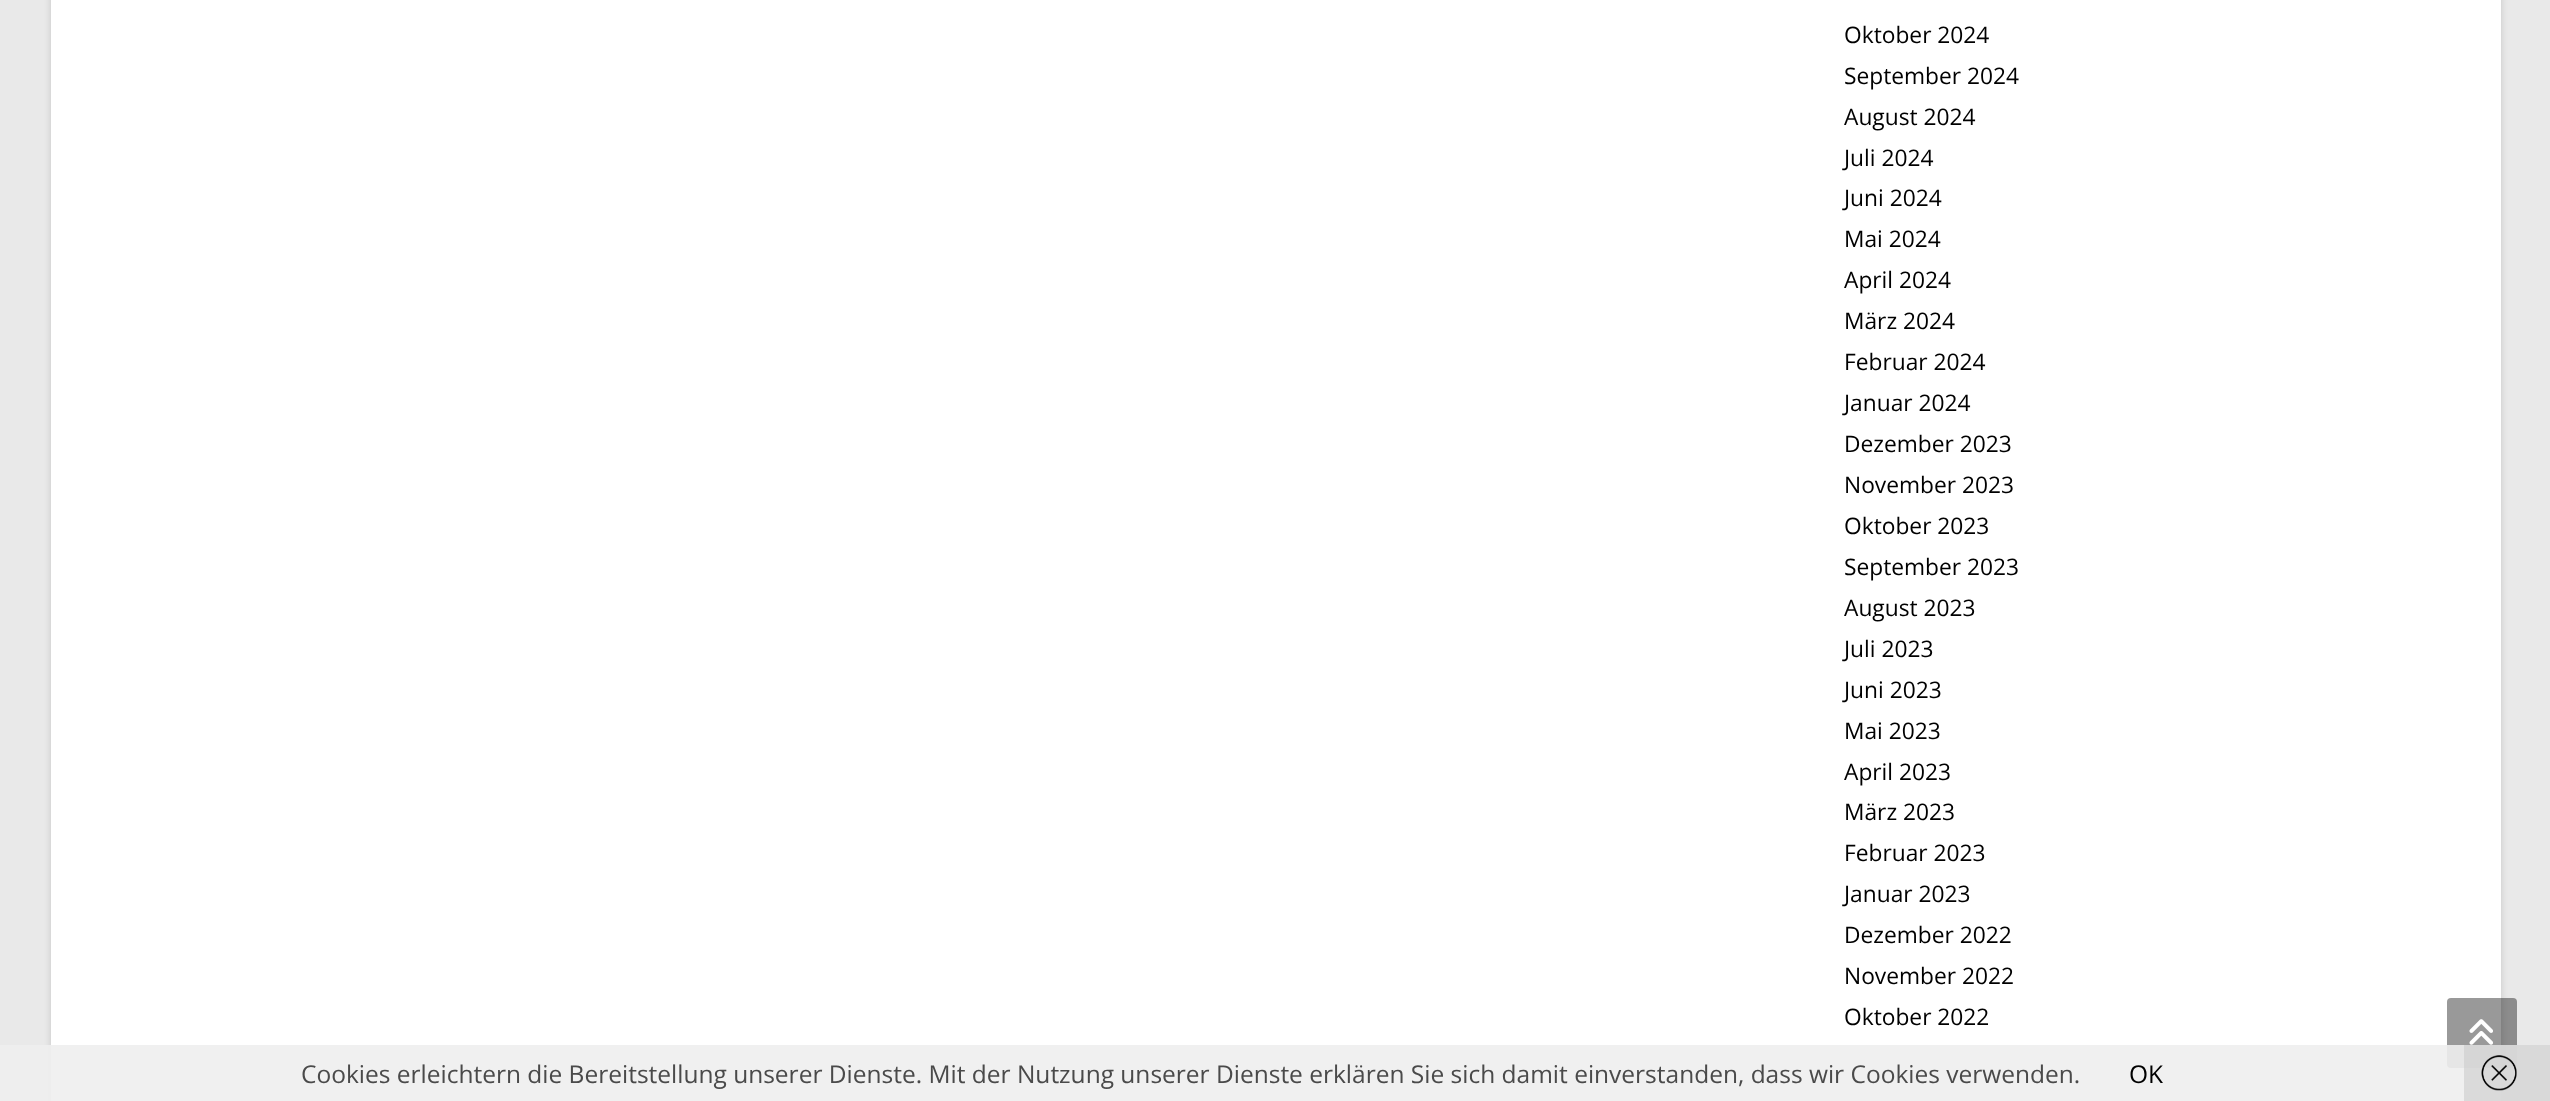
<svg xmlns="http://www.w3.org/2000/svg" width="2550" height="1101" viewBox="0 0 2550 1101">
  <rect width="100%" height="100%" fill="#e9e9e9"/>
  <path d="M51 -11h2450v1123H51z" fill="#00000026" filter="blur(3.5px)"/>
  <path d="M51 0h2450v1101H51z" fill="#fff"/>
  <rect x="2447" y="998" width="70" height="70" rx="4" fill="#00000066"/>
  <image x="2469" y="1019" width="24" height="26" href="img/1.png"/>
  <path d="M0 1045h2550v56H0z" fill="#eeeeeee6"/>
  <path d="M2464 1045h86v56H2464z" fill="#cccccc99"/>
  <image x="2481" y="1055" width="36" height="36" href="img/2.png"/>
  <g font-family="Open Sans" font-size="22.75" fill="#000">
    <text x="1844" y="43">Oktober 2024</text>
    <text x="1844" y="84">September 2024</text>
    <text x="1844" y="125">August 2024</text>
    <text x="1844" y="166">Juli 2024</text>
    <text x="1844" y="206">Juni 2024</text>
    <text x="1844" y="247">Mai 2024</text>
    <text x="1844" y="288">April 2024</text>
    <text x="1844" y="329">März 2024</text>
    <text x="1844" y="370">Februar 2024</text>
    <text x="1844" y="411">Januar 2024</text>
    <text x="1844" y="452">Dezember 2023</text>
    <text x="1844" y="493">November 2023</text>
    <text x="1844" y="534">Oktober 2023</text>
    <text x="1844" y="575">September 2023</text>
    <text x="1844" y="616">August 2023</text>
    <text x="1844" y="657">Juli 2023</text>
    <text x="1844" y="698">Juni 2023</text>
    <text x="1844" y="739">Mai 2023</text>
    <text x="1844" y="780">April 2023</text>
    <text x="1844" y="820">März 2023</text>
    <text x="1844" y="861">Februar 2023</text>
    <text x="1844" y="902">Januar 2023</text>
    <text x="1844" y="943">Dezember 2022</text>
    <text x="1844" y="984">November 2022</text>
    <text x="1844" y="1025">Oktober 2022</text>
  </g>
  <text x="301" y="1083" font-family="Open Sans" font-size="24.5" fill="#4a4a4a">Cookies erleichtern die Bereitstellung unserer Dienste. Mit der Nutzung unserer Dienste erklären Sie sich damit einverstanden, dass wir Cookies verwenden.</text>
  <text x="2129" y="1083" font-family="Open Sans" font-size="24.5" fill="#000">OK</text>
</svg>
